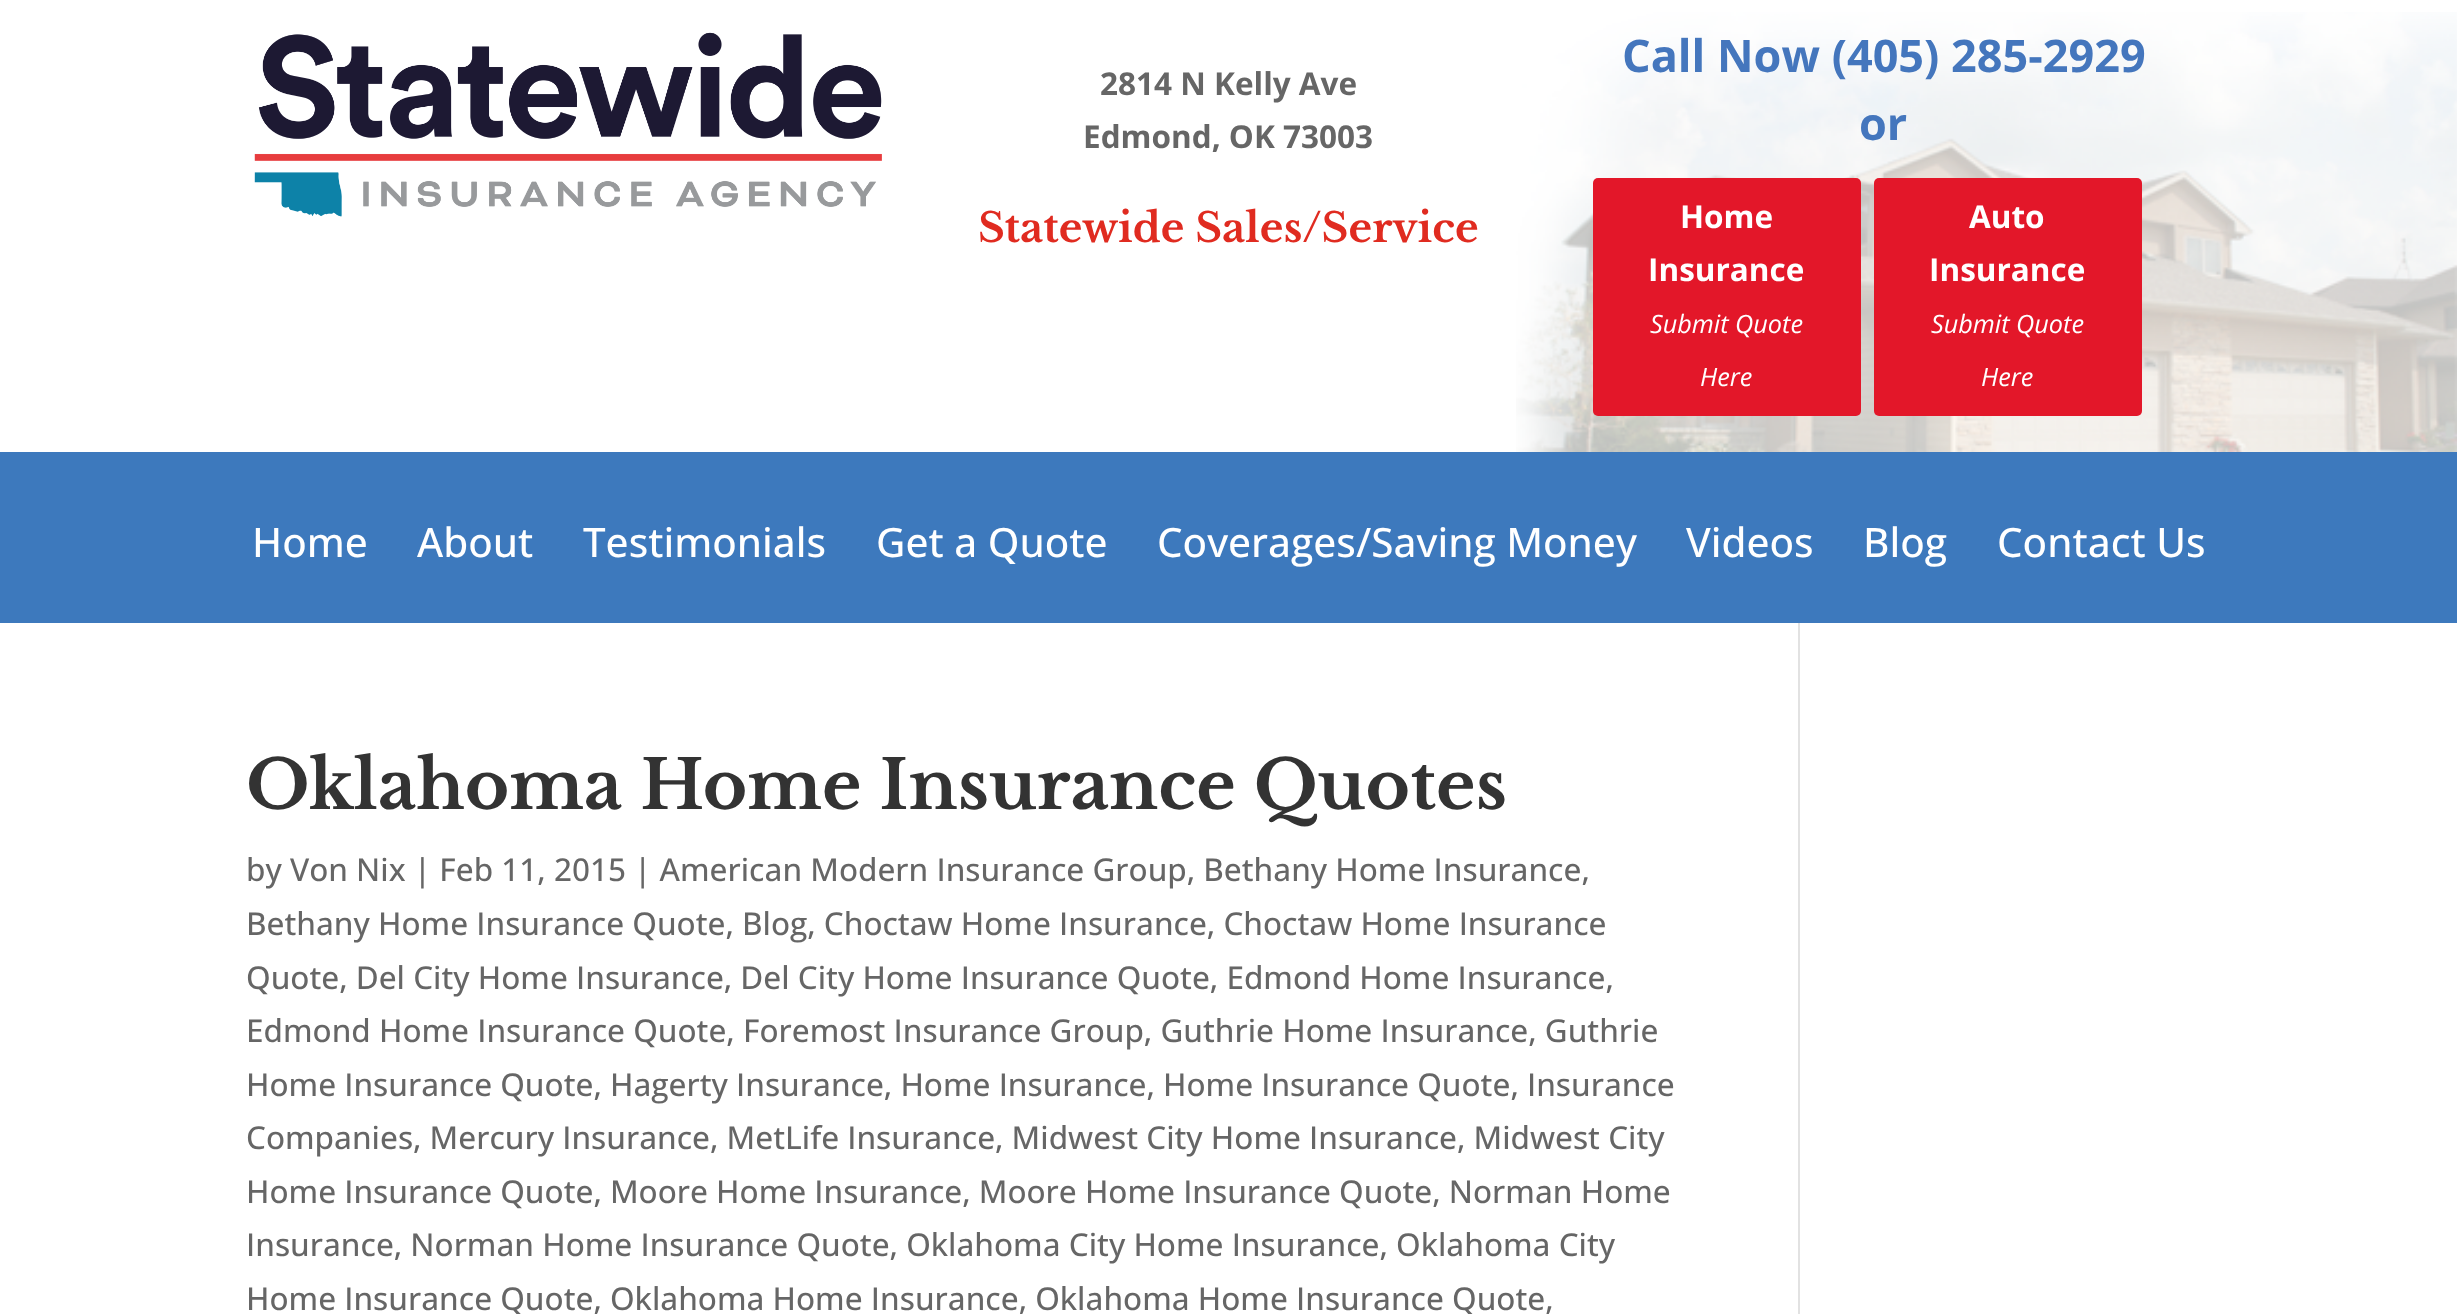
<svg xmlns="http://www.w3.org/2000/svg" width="2457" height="1314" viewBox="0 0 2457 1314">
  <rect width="100%" height="100%" fill="#fff"/>
  <image x="1516" y="12" width="941" height="440" href="img/1.png"/>
  <image x="254" y="32" width="628" height="185" href="img/2.png"/>
  <rect x="1593" y="178" width="268" height="238" rx="5" fill="#e31729"/>
  <rect x="1874" y="178" width="268" height="238" rx="5" fill="#e31729"/>
  <path d="M0 452h2457v171H0z" fill="#3d79bd"/>
  <path d="M1798 623h2v691H1798z" fill="#e2e2e2"/>
  <g font-family="Open Sans" font-size="31.5" font-weight="bold" fill="#666">
    <text x="1100" y="95">2814 N Kelly Ave</text>
    <text x="1083" y="148">Edmond, OK 73003</text>
  </g>
  <text x="978" y="242" font-family="Libre Baskerville" font-size="40.5" font-weight="bold" fill="#e02b20">Statewide Sales/Service</text>
  <g font-family="Open Sans" font-size="45" font-weight="bold" fill="#4476bd">
    <text x="1622" y="72">Call Now (405) 285-2929</text>
    <text x="1859" y="140">or</text>
  </g>
  <g font-family="Open Sans" font-size="31.5" font-weight="bold" fill="#fff">
    <text x="1680" y="228">Home</text>
    <text x="1648" y="281">Insurance</text>
  </g>
  <g font-family="Open Sans" font-size="25.25" font-style="italic" fill="#fff">
    <text x="1650" y="333">Submit Quote</text>
    <text x="1700" y="386">Here</text>
  </g>
  <g font-family="Open Sans" font-size="31.5" font-weight="bold" fill="#fff">
    <text x="1969" y="228">Auto</text>
    <text x="1929" y="281">Insurance</text>
  </g>
  <g font-family="Open Sans" font-size="25.25" font-style="italic" fill="#fff">
    <text x="1931" y="333">Submit Quote</text>
    <text x="1981" y="386">Here</text>
  </g>
  <g font-family="Open Sans" font-size="40.5" font-weight="500" fill="#fff">
    <text x="252" y="557">Home</text>
    <text x="417" y="557">About</text>
    <text x="583" y="557">Testimonials</text>
    <text x="876" y="557">Get a Quote</text>
    <text x="1157" y="557">Coverages/Saving Money</text>
    <text x="1686" y="557">Videos</text>
    <text x="1863" y="557">Blog</text>
    <text x="1997" y="557">Contact Us</text>
  </g>
  <text x="246" y="809" font-family="Libre Baskerville" font-size="67.5" font-weight="bold" fill="#333">Oklahoma Home Insurance Quotes</text>
  <g font-family="Open Sans" font-size="31.5" font-weight="500" fill="#666">
    <text x="246" y="881">by Von Nix | Feb 11, 2015 | American Modern Insurance Group, Bethany Home Insurance,</text>
    <text x="246" y="935">Bethany Home Insurance Quote, Blog, Choctaw Home Insurance, Choctaw Home Insurance</text>
    <text x="246" y="989">Quote, Del City Home Insurance, Del City Home Insurance Quote, Edmond Home Insurance,</text>
    <text x="246" y="1042">Edmond Home Insurance Quote, Foremost Insurance Group, Guthrie Home Insurance, Guthrie</text>
    <text x="246" y="1096">Home Insurance Quote, Hagerty Insurance, Home Insurance, Home Insurance Quote, Insurance</text>
    <text x="246" y="1149">Companies, Mercury Insurance, MetLife Insurance, Midwest City Home Insurance, Midwest City</text>
    <text x="246" y="1203">Home Insurance Quote, Moore Home Insurance, Moore Home Insurance Quote, Norman Home</text>
    <text x="246" y="1256">Insurance, Norman Home Insurance Quote, Oklahoma City Home Insurance, Oklahoma City</text>
    <text x="246" y="1310">Home Insurance Quote, Oklahoma Home Insurance, Oklahoma Home Insurance Quote,</text>
  </g>
</svg>
